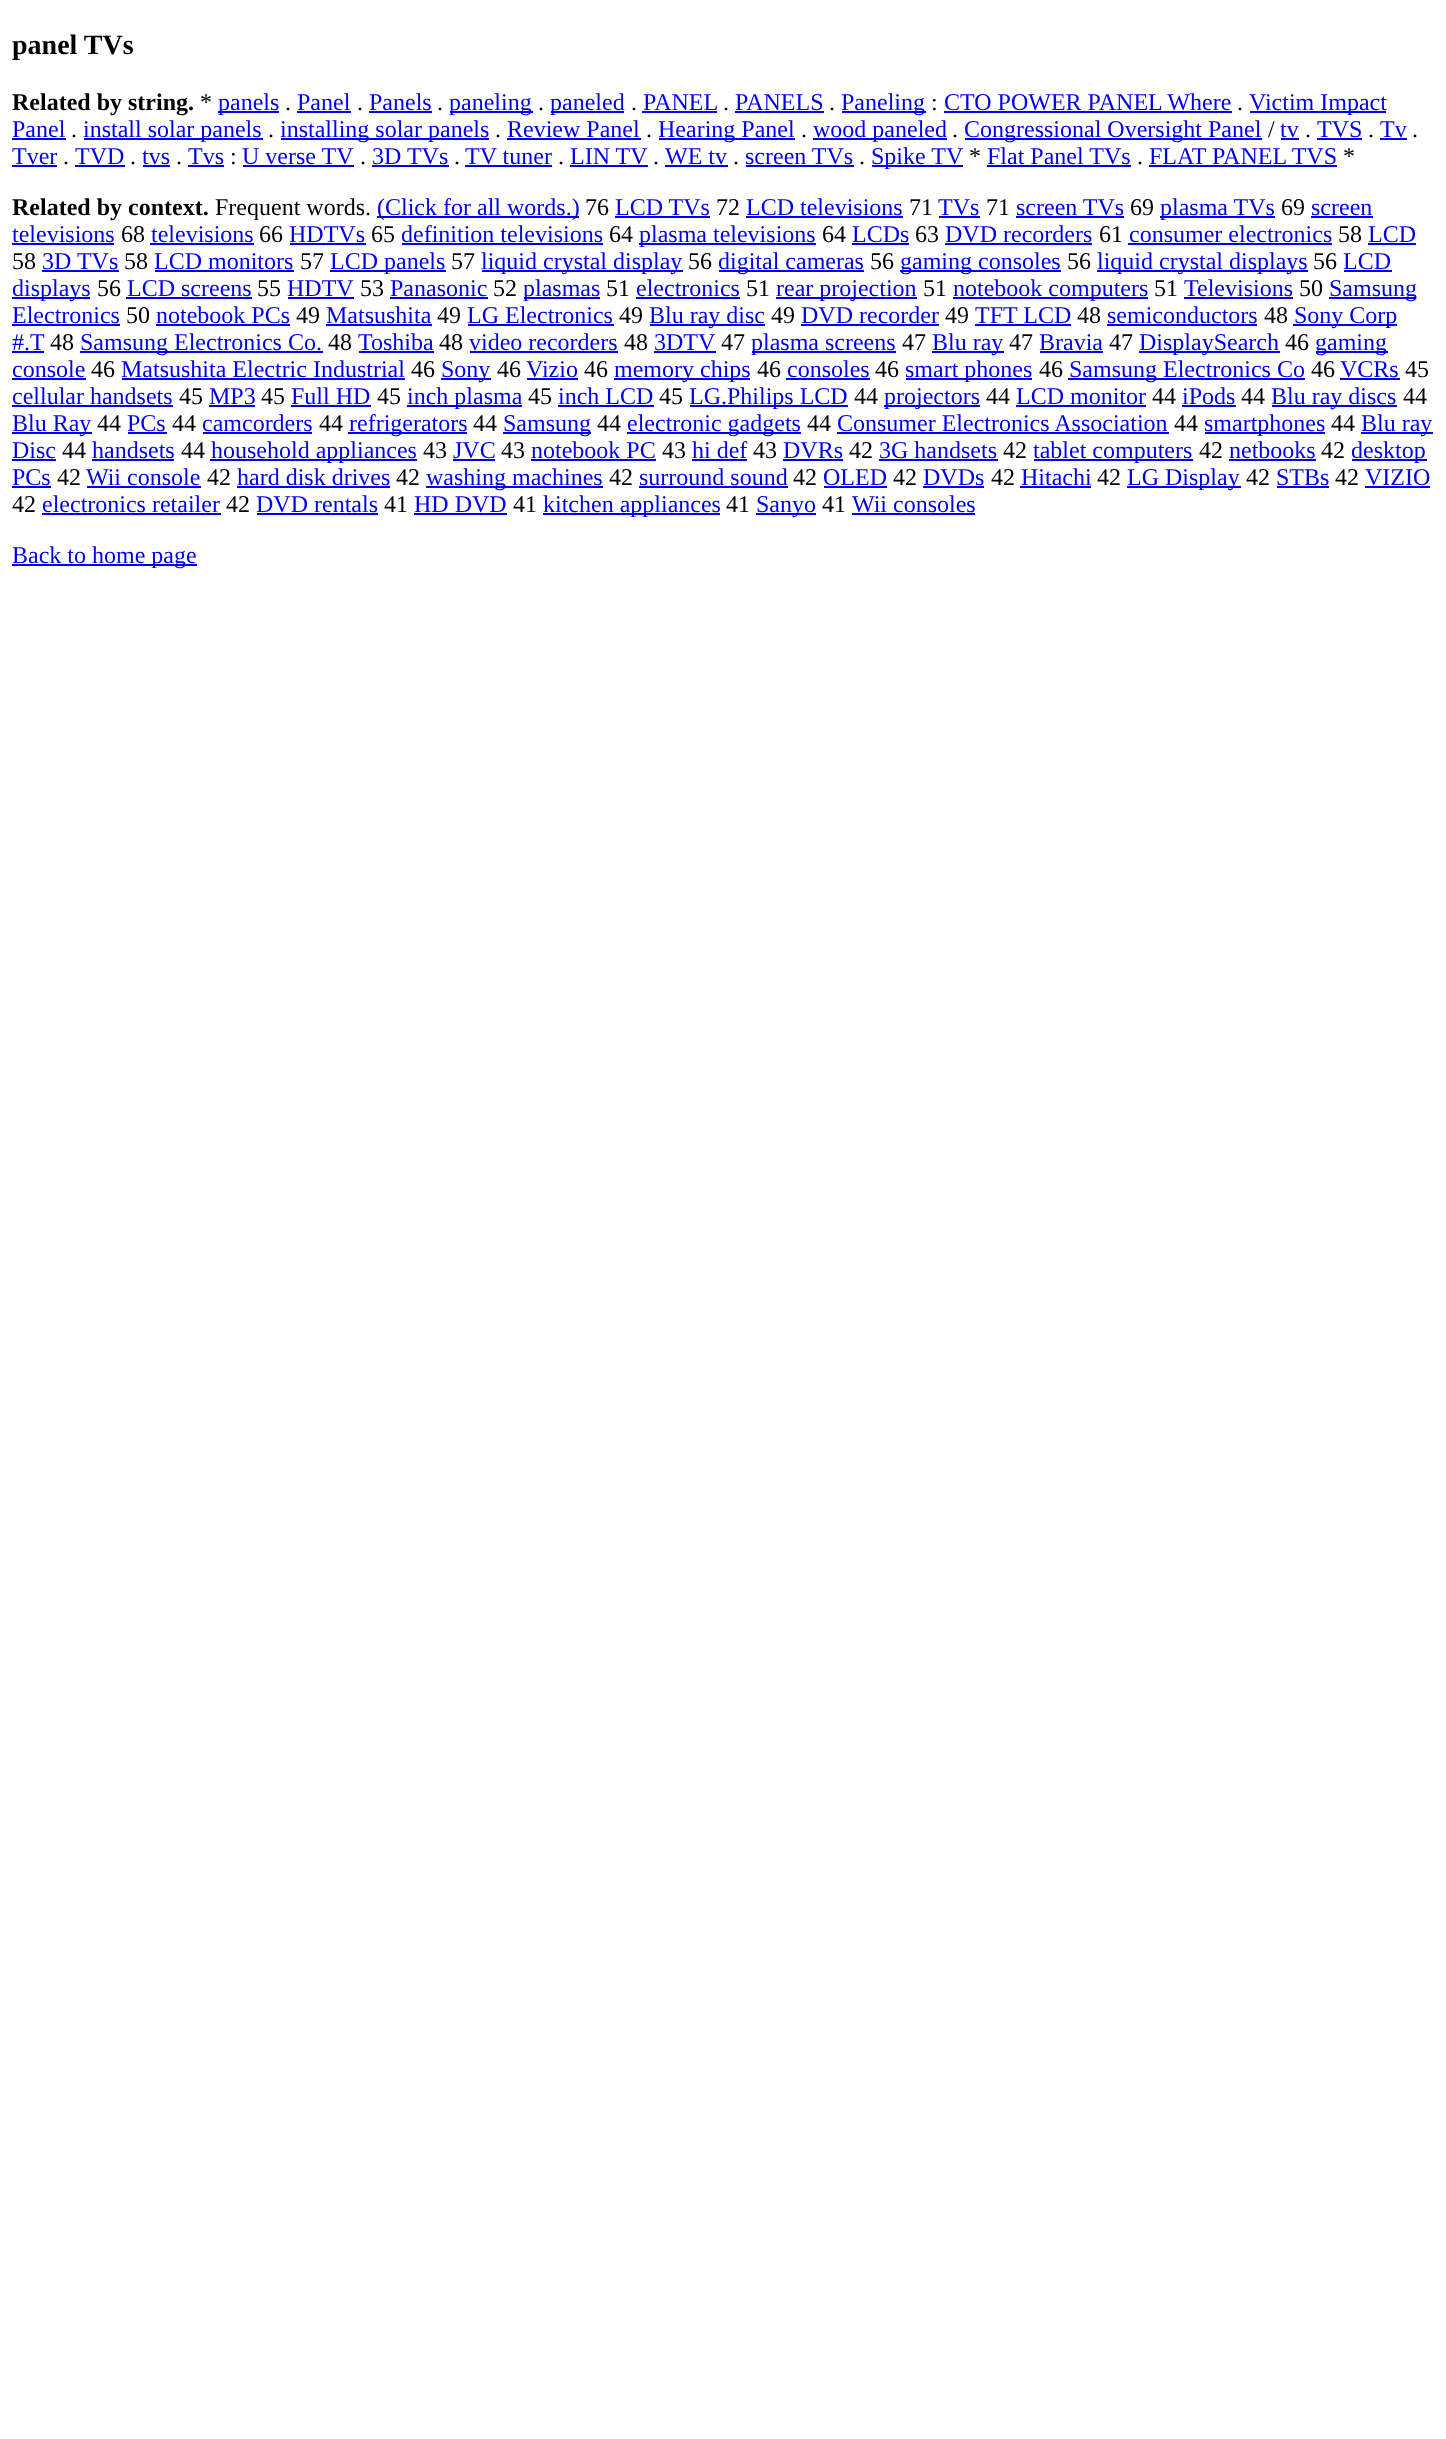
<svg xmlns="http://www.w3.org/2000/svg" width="1446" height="2439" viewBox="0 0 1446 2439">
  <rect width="100%" height="100%" fill="#fff"/>
  <path d="M218 111h61v2H218z" fill="#00e"/>
  <path d="M297 111h54v2H297z" fill="#00e"/>
  <path d="M369 111h63v2H369z" fill="#00e"/>
  <path d="M450 111h83v2H450z" fill="#00e"/>
  <path d="M551 111h73v2H551z" fill="#00e"/>
  <path d="M642 111h75v2H642z" fill="#00e"/>
  <path d="M735 111h89v2H735z" fill="#00e"/>
  <path d="M842 111h84v2H842z" fill="#00e"/>
  <path d="M944 111h288v2H944z" fill="#00e"/>
  <path d="M1250 111h136v2H1250z" fill="#00e"/>
  <path d="M12 138h54v2H12z" fill="#00e"/>
  <path d="M84 138h179v2H84z" fill="#00e"/>
  <path d="M281 138h208v2H281z" fill="#00e"/>
  <path d="M507 138h134v2H507z" fill="#00e"/>
  <path d="M659 138h136v2H659z" fill="#00e"/>
  <path d="M813 138h134v2H813z" fill="#00e"/>
  <path d="M965 138h297v2H965z" fill="#00e"/>
  <path d="M1281 138h18v2H1281z" fill="#00e"/>
  <path d="M1317 138h45v2H1317z" fill="#00e"/>
  <path d="M1380 138h27v2H1380z" fill="#00e"/>
  <path d="M12 165h45v2H12z" fill="#00e"/>
  <path d="M75 165h50v2H75z" fill="#00e"/>
  <path d="M143 165h27v2H143z" fill="#00e"/>
  <path d="M188 165h36v2H188z" fill="#00e"/>
  <path d="M243 165h111v2H243z" fill="#00e"/>
  <path d="M372 165h77v2H372z" fill="#00e"/>
  <path d="M465 165h87v2H465z" fill="#00e"/>
  <path d="M570 165h78v2H570z" fill="#00e"/>
  <path d="M665 165h63v2H665z" fill="#00e"/>
  <path d="M746 165h108v2H746z" fill="#00e"/>
  <path d="M872 165h91v2H872z" fill="#00e"/>
  <path d="M987 165h144v2H987z" fill="#00e"/>
  <path d="M1149 165h188v2H1149z" fill="#00e"/>
  <path d="M377 216h202v2H377z" fill="#00e"/>
  <path d="M615 216h95v2H615z" fill="#00e"/>
  <path d="M746 216h157v2H746z" fill="#00e"/>
  <path d="M939 216h41v2H939z" fill="#00e"/>
  <path d="M1016 216h108v2H1016z" fill="#00e"/>
  <path d="M1160 216h115v2H1160z" fill="#00e"/>
  <path d="M1311 216h62v2H1311z" fill="#00e"/>
  <path d="M12 243h102v2H12z" fill="#00e"/>
  <path d="M150 243h104v2H150z" fill="#00e"/>
  <path d="M290 243h76v2H290z" fill="#00e"/>
  <path d="M402 243h201v2H402z" fill="#00e"/>
  <path d="M639 243h177v2H639z" fill="#00e"/>
  <path d="M852 243h57v2H852z" fill="#00e"/>
  <path d="M945 243h147v2H945z" fill="#00e"/>
  <path d="M1128 243h204v2H1128z" fill="#00e"/>
  <path d="M1368 243h48v2H1368z" fill="#00e"/>
  <path d="M42 270h77v2H42z" fill="#00e"/>
  <path d="M155 270h139v2H155z" fill="#00e"/>
  <path d="M330 270h116v2H330z" fill="#00e"/>
  <path d="M482 270h201v2H482z" fill="#00e"/>
  <path d="M719 270h145v2H719z" fill="#00e"/>
  <path d="M900 270h161v2H900z" fill="#00e"/>
  <path d="M1097 270h211v2H1097z" fill="#00e"/>
  <path d="M1344 270h48v2H1344z" fill="#00e"/>
  <path d="M12 297h78v2H12z" fill="#00e"/>
  <path d="M126 297h126v2H126z" fill="#00e"/>
  <path d="M288 297h66v2H288z" fill="#00e"/>
  <path d="M390 297h98v2H390z" fill="#00e"/>
  <path d="M524 297h76v2H524z" fill="#00e"/>
  <path d="M636 297h104v2H636z" fill="#00e"/>
  <path d="M776 297h141v2H776z" fill="#00e"/>
  <path d="M953 297h195v2H953z" fill="#00e"/>
  <path d="M1184 297h109v2H1184z" fill="#00e"/>
  <path d="M1329 297h87v2H1329z" fill="#00e"/>
  <path d="M12 324h108v2H12z" fill="#00e"/>
  <path d="M156 324h134v2H156z" fill="#00e"/>
  <path d="M326 324h106v2H326z" fill="#00e"/>
  <path d="M468 324h146v2H468z" fill="#00e"/>
  <path d="M650 324h115v2H650z" fill="#00e"/>
  <path d="M801 324h138v2H801z" fill="#00e"/>
  <path d="M975 324h96v2H975z" fill="#00e"/>
  <path d="M1107 324h150v2H1107z" fill="#00e"/>
  <path d="M1293 324h104v2H1293z" fill="#00e"/>
  <path d="M12 351h32v2H12z" fill="#00e"/>
  <path d="M80 351h243v2H80z" fill="#00e"/>
  <path d="M359 351h75v2H359z" fill="#00e"/>
  <path d="M470 351h148v2H470z" fill="#00e"/>
  <path d="M654 351h62v2H654z" fill="#00e"/>
  <path d="M752 351h144v2H752z" fill="#00e"/>
  <path d="M932 351h72v2H932z" fill="#00e"/>
  <path d="M1040 351h63v2H1040z" fill="#00e"/>
  <path d="M1139 351h141v2H1139z" fill="#00e"/>
  <path d="M1316 351h72v2H1316z" fill="#00e"/>
  <path d="M12 378h74v2H12z" fill="#00e"/>
  <path d="M122 378h283v2H122z" fill="#00e"/>
  <path d="M441 378h50v2H441z" fill="#00e"/>
  <path d="M527 378h51v2H527z" fill="#00e"/>
  <path d="M614 378h136v2H614z" fill="#00e"/>
  <path d="M786 378h84v2H786z" fill="#00e"/>
  <path d="M906 378h126v2H906z" fill="#00e"/>
  <path d="M1068 378h237v2H1068z" fill="#00e"/>
  <path d="M1340 378h60v2H1340z" fill="#00e"/>
  <path d="M12 405h161v2H12z" fill="#00e"/>
  <path d="M209 405h46v2H209z" fill="#00e"/>
  <path d="M291 405h80v2H291z" fill="#00e"/>
  <path d="M407 405h115v2H407z" fill="#00e"/>
  <path d="M558 405h96v2H558z" fill="#00e"/>
  <path d="M690 405h158v2H690z" fill="#00e"/>
  <path d="M884 405h96v2H884z" fill="#00e"/>
  <path d="M1016 405h130v2H1016z" fill="#00e"/>
  <path d="M1182 405h54v2H1182z" fill="#00e"/>
  <path d="M1272 405h125v2H1272z" fill="#00e"/>
  <path d="M12 432h80v2H12z" fill="#00e"/>
  <path d="M128 432h39v2H128z" fill="#00e"/>
  <path d="M203 432h109v2H203z" fill="#00e"/>
  <path d="M348 432h119v2H348z" fill="#00e"/>
  <path d="M503 432h88v2H503z" fill="#00e"/>
  <path d="M627 432h174v2H627z" fill="#00e"/>
  <path d="M837 432h332v2H837z" fill="#00e"/>
  <path d="M1205 432h120v2H1205z" fill="#00e"/>
  <path d="M1361 432h72v2H1361z" fill="#00e"/>
  <path d="M12 459h44v2H12z" fill="#00e"/>
  <path d="M92 459h82v2H92z" fill="#00e"/>
  <path d="M210 459h207v2H210z" fill="#00e"/>
  <path d="M453 459h42v2H453z" fill="#00e"/>
  <path d="M531 459h125v2H531z" fill="#00e"/>
  <path d="M692 459h55v2H692z" fill="#00e"/>
  <path d="M783 459h60v2H783z" fill="#00e"/>
  <path d="M879 459h119v2H879z" fill="#00e"/>
  <path d="M1034 459h159v2H1034z" fill="#00e"/>
  <path d="M1229 459h87v2H1229z" fill="#00e"/>
  <path d="M1352 459h75v2H1352z" fill="#00e"/>
  <path d="M12 486h39v2H12z" fill="#00e"/>
  <path d="M87 486h114v2H87z" fill="#00e"/>
  <path d="M237 486h153v2H237z" fill="#00e"/>
  <path d="M426 486h177v2H426z" fill="#00e"/>
  <path d="M639 486h149v2H639z" fill="#00e"/>
  <path d="M824 486h63v2H824z" fill="#00e"/>
  <path d="M923 486h61v2H923z" fill="#00e"/>
  <path d="M1020 486h71v2H1020z" fill="#00e"/>
  <path d="M1127 486h114v2H1127z" fill="#00e"/>
  <path d="M1277 486h52v2H1277z" fill="#00e"/>
  <path d="M1365 486h65v2H1365z" fill="#00e"/>
  <path d="M42 513h179v2H42z" fill="#00e"/>
  <path d="M257 513h121v2H257z" fill="#00e"/>
  <path d="M414 513h93v2H414z" fill="#00e"/>
  <path d="M543 513h177v2H543z" fill="#00e"/>
  <path d="M756 513h60v2H756z" fill="#00e"/>
  <path d="M852 513h123v2H852z" fill="#00e"/>
  <path d="M12 564h185v2H12z" fill="#00e"/>
  <text x="12" y="54" font-family="Liberation Serif" font-size="28" font-weight="bold" fill="#000">panel TVs</text>
  <text x="12" y="110" font-family="Liberation Serif" font-size="24" font-weight="bold" fill="#000">Related by string.</text>
  <text x="200" y="110" font-family="Liberation Serif" font-size="24" fill="#000">*</text>
  <text x="218" y="110" font-family="Liberation Serif" font-size="24" fill="#00e">panels</text>
  <text x="285" y="110" font-family="Liberation Serif" font-size="24" fill="#000">.</text>
  <text x="297" y="110" font-family="Liberation Serif" font-size="24" fill="#00e">Panel</text>
  <text x="357" y="110" font-family="Liberation Serif" font-size="24" fill="#000">.</text>
  <text x="369" y="110" font-family="Liberation Serif" font-size="24" fill="#00e">Panels</text>
  <text x="437" y="110" font-family="Liberation Serif" font-size="24" fill="#000">.</text>
  <text x="449" y="110" font-family="Liberation Serif" font-size="24" fill="#00e">paneling</text>
  <text x="538" y="110" font-family="Liberation Serif" font-size="24" fill="#000">.</text>
  <text x="550" y="110" font-family="Liberation Serif" font-size="24" fill="#00e">paneled</text>
  <text x="631" y="110" font-family="Liberation Serif" font-size="24" fill="#000">.</text>
  <text x="643" y="110" font-family="Liberation Serif" font-size="24" fill="#00e">PANEL</text>
  <text x="723" y="110" font-family="Liberation Serif" font-size="24" fill="#000">.</text>
  <text x="735" y="110" font-family="Liberation Serif" font-size="24" fill="#00e">PANELS</text>
  <text x="829" y="110" font-family="Liberation Serif" font-size="24" fill="#000">.</text>
  <text x="841" y="110" font-family="Liberation Serif" font-size="24" fill="#00e">Paneling</text>
  <text x="931" y="110" font-family="Liberation Serif" font-size="24" fill="#000">:</text>
  <text x="944" y="110" font-family="Liberation Serif" font-size="24" fill="#00e">CTO POWER PANEL Where</text>
  <text x="1237" y="110" font-family="Liberation Serif" font-size="24" fill="#000">.</text>
  <g font-family="Liberation Serif" font-size="24" fill="#00e">
    <text x="1249" y="110">Victim Impact</text>
    <text x="12" y="137">Panel</text>
  </g>
  <text x="71" y="137" font-family="Liberation Serif" font-size="24" fill="#000">.</text>
  <text x="83" y="137" font-family="Liberation Serif" font-size="24" fill="#00e">install solar panels</text>
  <text x="268" y="137" font-family="Liberation Serif" font-size="24" fill="#000">.</text>
  <text x="280" y="137" font-family="Liberation Serif" font-size="24" fill="#00e">installing solar panels</text>
  <text x="495" y="137" font-family="Liberation Serif" font-size="24" fill="#000">.</text>
  <text x="507" y="137" font-family="Liberation Serif" font-size="24" fill="#00e">Review Panel</text>
  <text x="646" y="137" font-family="Liberation Serif" font-size="24" fill="#000">.</text>
  <text x="658" y="137" font-family="Liberation Serif" font-size="24" fill="#00e">Hearing Panel</text>
  <text x="801" y="137" font-family="Liberation Serif" font-size="24" fill="#000">.</text>
  <text x="813" y="137" font-family="Liberation Serif" font-size="24" fill="#00e">wood paneled</text>
  <text x="952" y="137" font-family="Liberation Serif" font-size="24" fill="#000">.</text>
  <text x="964" y="137" font-family="Liberation Serif" font-size="24" fill="#00e">Congressional Oversight Panel</text>
  <text x="1268" y="137" font-family="Liberation Serif" font-size="24" fill="#000">/</text>
  <text x="1280" y="137" font-family="Liberation Serif" font-size="24" fill="#00e">tv</text>
  <text x="1305" y="137" font-family="Liberation Serif" font-size="24" fill="#000">.</text>
  <text x="1317" y="137" font-family="Liberation Serif" font-size="24" fill="#00e">TVS</text>
  <text x="1368" y="137" font-family="Liberation Serif" font-size="24" fill="#000">.</text>
  <text x="1380" y="137" font-family="Liberation Serif" font-size="24" fill="#00e">Tv</text>
  <text x="1412" y="137" font-family="Liberation Serif" font-size="24" fill="#000">.</text>
  <text x="12" y="164" font-family="Liberation Serif" font-size="24" fill="#00e">Tver</text>
  <text x="63" y="164" font-family="Liberation Serif" font-size="24" fill="#000">.</text>
  <text x="75" y="164" font-family="Liberation Serif" font-size="24" fill="#00e">TVD</text>
  <text x="130" y="164" font-family="Liberation Serif" font-size="24" fill="#000">.</text>
  <text x="142" y="164" font-family="Liberation Serif" font-size="24" fill="#00e">tvs</text>
  <text x="176" y="164" font-family="Liberation Serif" font-size="24" fill="#000">.</text>
  <text x="188" y="164" font-family="Liberation Serif" font-size="24" fill="#00e">Tvs</text>
  <text x="230" y="164" font-family="Liberation Serif" font-size="24" fill="#000">:</text>
  <text x="242" y="164" font-family="Liberation Serif" font-size="24" fill="#00e">U verse TV</text>
  <text x="360" y="164" font-family="Liberation Serif" font-size="24" fill="#000">.</text>
  <text x="372" y="164" font-family="Liberation Serif" font-size="24" fill="#00e">3D TVs</text>
  <text x="454" y="164" font-family="Liberation Serif" font-size="24" fill="#000">.</text>
  <text x="465" y="164" font-family="Liberation Serif" font-size="24" fill="#00e">TV tuner</text>
  <text x="558" y="164" font-family="Liberation Serif" font-size="24" fill="#000">.</text>
  <text x="570" y="164" font-family="Liberation Serif" font-size="24" fill="#00e">LIN TV</text>
  <text x="653" y="164" font-family="Liberation Serif" font-size="24" fill="#000">.</text>
  <text x="665" y="164" font-family="Liberation Serif" font-size="24" fill="#00e">WE tv</text>
  <text x="733" y="164" font-family="Liberation Serif" font-size="24" fill="#000">.</text>
  <text x="745" y="164" font-family="Liberation Serif" font-size="24" fill="#00e">screen TVs</text>
  <text x="859" y="164" font-family="Liberation Serif" font-size="24" fill="#000">.</text>
  <text x="871" y="164" font-family="Liberation Serif" font-size="24" fill="#00e">Spike TV</text>
  <text x="969" y="164" font-family="Liberation Serif" font-size="24" fill="#000">*</text>
  <text x="987" y="164" font-family="Liberation Serif" font-size="24" fill="#00e">Flat Panel TVs</text>
  <text x="1137" y="164" font-family="Liberation Serif" font-size="24" fill="#000">.</text>
  <text x="1149" y="164" font-family="Liberation Serif" font-size="24" fill="#00e">FLAT PANEL TVS</text>
  <text x="1343" y="164" font-family="Liberation Serif" font-size="24" fill="#000">*</text>
  <text x="12" y="215" font-family="Liberation Serif" font-size="24" font-weight="bold" fill="#000">Related by context.</text>
  <text x="215" y="215" font-family="Liberation Serif" font-size="24" fill="#000">Frequent words.</text>
  <text x="377" y="215" font-family="Liberation Serif" font-size="24" fill="#00e">(Click for all words.)</text>
  <text x="585" y="215" font-family="Liberation Serif" font-size="24" fill="#000">76</text>
  <text x="615" y="215" font-family="Liberation Serif" font-size="24" fill="#00e">LCD TVs</text>
  <text x="716" y="215" font-family="Liberation Serif" font-size="24" fill="#000">72</text>
  <text x="746" y="215" font-family="Liberation Serif" font-size="24" fill="#00e">LCD televisions</text>
  <text x="909" y="215" font-family="Liberation Serif" font-size="24" fill="#000">71</text>
  <text x="938" y="215" font-family="Liberation Serif" font-size="24" fill="#00e">TVs</text>
  <text x="986" y="215" font-family="Liberation Serif" font-size="24" fill="#000">71</text>
  <text x="1016" y="215" font-family="Liberation Serif" font-size="24" fill="#00e">screen TVs</text>
  <text x="1130" y="215" font-family="Liberation Serif" font-size="24" fill="#000">69</text>
  <text x="1160" y="215" font-family="Liberation Serif" font-size="24" fill="#00e">plasma TVs</text>
  <text x="1281" y="215" font-family="Liberation Serif" font-size="24" fill="#000">69</text>
  <g font-family="Liberation Serif" font-size="24" fill="#00e">
    <text x="1311" y="215">screen</text>
    <text x="12" y="242">televisions</text>
  </g>
  <text x="121" y="242" font-family="Liberation Serif" font-size="24" fill="#000">68</text>
  <text x="151" y="242" font-family="Liberation Serif" font-size="24" fill="#00e">televisions</text>
  <text x="259" y="242" font-family="Liberation Serif" font-size="24" fill="#000">66</text>
  <text x="289" y="242" font-family="Liberation Serif" font-size="24" fill="#00e">HDTVs</text>
  <text x="371" y="242" font-family="Liberation Serif" font-size="24" fill="#000">65</text>
  <text x="401" y="242" font-family="Liberation Serif" font-size="24" fill="#00e">definition televisions</text>
  <text x="609" y="242" font-family="Liberation Serif" font-size="24" fill="#000">64</text>
  <text x="639" y="242" font-family="Liberation Serif" font-size="24" fill="#00e">plasma televisions</text>
  <text x="822" y="242" font-family="Liberation Serif" font-size="24" fill="#000">64</text>
  <text x="852" y="242" font-family="Liberation Serif" font-size="24" fill="#00e">LCDs</text>
  <text x="915" y="242" font-family="Liberation Serif" font-size="24" fill="#000">63</text>
  <text x="945" y="242" font-family="Liberation Serif" font-size="24" fill="#00e">DVD recorders</text>
  <text x="1099" y="242" font-family="Liberation Serif" font-size="24" fill="#000">61</text>
  <text x="1129" y="242" font-family="Liberation Serif" font-size="24" fill="#00e">consumer electronics</text>
  <text x="1338" y="242" font-family="Liberation Serif" font-size="24" fill="#000">58</text>
  <text x="1368" y="242" font-family="Liberation Serif" font-size="24" fill="#00e">LCD</text>
  <text x="12" y="269" font-family="Liberation Serif" font-size="24" fill="#000">58</text>
  <text x="42" y="269" font-family="Liberation Serif" font-size="24" fill="#00e">3D TVs</text>
  <text x="124" y="269" font-family="Liberation Serif" font-size="24" fill="#000">58</text>
  <text x="154" y="269" font-family="Liberation Serif" font-size="24" fill="#00e">LCD monitors</text>
  <text x="300" y="269" font-family="Liberation Serif" font-size="24" fill="#000">57</text>
  <text x="330" y="269" font-family="Liberation Serif" font-size="24" fill="#00e">LCD panels</text>
  <text x="451" y="269" font-family="Liberation Serif" font-size="24" fill="#000">57</text>
  <text x="481" y="269" font-family="Liberation Serif" font-size="24" fill="#00e">liquid crystal display</text>
  <text x="688" y="269" font-family="Liberation Serif" font-size="24" fill="#000">56</text>
  <text x="718" y="269" font-family="Liberation Serif" font-size="24" fill="#00e">digital cameras</text>
  <text x="870" y="269" font-family="Liberation Serif" font-size="24" fill="#000">56</text>
  <text x="900" y="269" font-family="Liberation Serif" font-size="24" fill="#00e">gaming consoles</text>
  <text x="1067" y="269" font-family="Liberation Serif" font-size="24" fill="#000">56</text>
  <text x="1097" y="269" font-family="Liberation Serif" font-size="24" fill="#00e">liquid crystal displays</text>
  <text x="1313" y="269" font-family="Liberation Serif" font-size="24" fill="#000">56</text>
  <g font-family="Liberation Serif" font-size="24" fill="#00e">
    <text x="1343" y="269">LCD</text>
    <text x="12" y="296">displays</text>
  </g>
  <text x="97" y="296" font-family="Liberation Serif" font-size="24" fill="#000">56</text>
  <text x="127" y="296" font-family="Liberation Serif" font-size="24" fill="#00e">LCD screens</text>
  <text x="257" y="296" font-family="Liberation Serif" font-size="24" fill="#000">55</text>
  <text x="287" y="296" font-family="Liberation Serif" font-size="24" fill="#00e">HDTV</text>
  <text x="360" y="296" font-family="Liberation Serif" font-size="24" fill="#000">53</text>
  <text x="390" y="296" font-family="Liberation Serif" font-size="24" fill="#00e">Panasonic</text>
  <text x="493" y="296" font-family="Liberation Serif" font-size="24" fill="#000">52</text>
  <text x="523" y="296" font-family="Liberation Serif" font-size="24" fill="#00e">plasmas</text>
  <text x="606" y="296" font-family="Liberation Serif" font-size="24" fill="#000">51</text>
  <text x="636" y="296" font-family="Liberation Serif" font-size="24" fill="#00e">electronics</text>
  <text x="746" y="296" font-family="Liberation Serif" font-size="24" fill="#000">51</text>
  <text x="776" y="296" font-family="Liberation Serif" font-size="24" fill="#00e">rear projection</text>
  <text x="923" y="296" font-family="Liberation Serif" font-size="24" fill="#000">51</text>
  <text x="953" y="296" font-family="Liberation Serif" font-size="24" fill="#00e">notebook computers</text>
  <text x="1154" y="296" font-family="Liberation Serif" font-size="24" fill="#000">51</text>
  <text x="1184" y="296" font-family="Liberation Serif" font-size="24" fill="#00e">Televisions</text>
  <text x="1299" y="296" font-family="Liberation Serif" font-size="24" fill="#000">50</text>
  <g font-family="Liberation Serif" font-size="24" fill="#00e">
    <text x="1329" y="296">Samsung</text>
    <text x="12" y="323">Electronics</text>
  </g>
  <text x="126" y="323" font-family="Liberation Serif" font-size="24" fill="#000">50</text>
  <text x="156" y="323" font-family="Liberation Serif" font-size="24" fill="#00e">notebook PCs</text>
  <text x="296" y="323" font-family="Liberation Serif" font-size="24" fill="#000">49</text>
  <text x="326" y="323" font-family="Liberation Serif" font-size="24" fill="#00e">Matsushita</text>
  <text x="437" y="323" font-family="Liberation Serif" font-size="24" fill="#000">49</text>
  <text x="467" y="323" font-family="Liberation Serif" font-size="24" fill="#00e">LG Electronics</text>
  <text x="619" y="323" font-family="Liberation Serif" font-size="24" fill="#000">49</text>
  <text x="649" y="323" font-family="Liberation Serif" font-size="24" fill="#00e">Blu ray disc</text>
  <text x="771" y="323" font-family="Liberation Serif" font-size="24" fill="#000">49</text>
  <text x="801" y="323" font-family="Liberation Serif" font-size="24" fill="#00e">DVD recorder</text>
  <text x="945" y="323" font-family="Liberation Serif" font-size="24" fill="#000">49</text>
  <text x="975" y="323" font-family="Liberation Serif" font-size="24" fill="#00e">TFT LCD</text>
  <text x="1077" y="323" font-family="Liberation Serif" font-size="24" fill="#000">48</text>
  <text x="1107" y="323" font-family="Liberation Serif" font-size="24" fill="#00e">semiconductors</text>
  <text x="1264" y="323" font-family="Liberation Serif" font-size="24" fill="#000">48</text>
  <g font-family="Liberation Serif" font-size="24" fill="#00e">
    <text x="1294" y="323">Sony Corp</text>
    <text x="12" y="350">#.T</text>
  </g>
  <text x="50" y="350" font-family="Liberation Serif" font-size="24" fill="#000">48</text>
  <text x="80" y="350" font-family="Liberation Serif" font-size="24" fill="#00e">Samsung Electronics Co.</text>
  <text x="328" y="350" font-family="Liberation Serif" font-size="24" fill="#000">48</text>
  <text x="358" y="350" font-family="Liberation Serif" font-size="24" fill="#00e">Toshiba</text>
  <text x="439" y="350" font-family="Liberation Serif" font-size="24" fill="#000">48</text>
  <text x="469" y="350" font-family="Liberation Serif" font-size="24" fill="#00e">video recorders</text>
  <text x="624" y="350" font-family="Liberation Serif" font-size="24" fill="#000">48</text>
  <text x="654" y="350" font-family="Liberation Serif" font-size="24" fill="#00e">3DTV</text>
  <text x="721" y="350" font-family="Liberation Serif" font-size="24" fill="#000">47</text>
  <text x="751" y="350" font-family="Liberation Serif" font-size="24" fill="#00e">plasma screens</text>
  <text x="902" y="350" font-family="Liberation Serif" font-size="24" fill="#000">47</text>
  <text x="932" y="350" font-family="Liberation Serif" font-size="24" fill="#00e">Blu ray</text>
  <text x="1009" y="350" font-family="Liberation Serif" font-size="24" fill="#000">47</text>
  <text x="1039" y="350" font-family="Liberation Serif" font-size="24" fill="#00e">Bravia</text>
  <text x="1109" y="350" font-family="Liberation Serif" font-size="24" fill="#000">47</text>
  <text x="1139" y="350" font-family="Liberation Serif" font-size="24" fill="#00e">DisplaySearch</text>
  <text x="1285" y="350" font-family="Liberation Serif" font-size="24" fill="#000">46</text>
  <g font-family="Liberation Serif" font-size="24" fill="#00e">
    <text x="1315" y="350">gaming</text>
    <text x="12" y="377">console</text>
  </g>
  <text x="91" y="377" font-family="Liberation Serif" font-size="24" fill="#000">46</text>
  <text x="121" y="377" font-family="Liberation Serif" font-size="24" fill="#00e">Matsushita Electric Industrial</text>
  <text x="411" y="377" font-family="Liberation Serif" font-size="24" fill="#000">46</text>
  <text x="441" y="377" font-family="Liberation Serif" font-size="24" fill="#00e">Sony</text>
  <text x="497" y="377" font-family="Liberation Serif" font-size="24" fill="#000">46</text>
  <text x="526" y="377" font-family="Liberation Serif" font-size="24" fill="#00e">Vizio</text>
  <text x="584" y="377" font-family="Liberation Serif" font-size="24" fill="#000">46</text>
  <text x="614" y="377" font-family="Liberation Serif" font-size="24" fill="#00e">memory chips</text>
  <text x="757" y="377" font-family="Liberation Serif" font-size="24" fill="#000">46</text>
  <text x="787" y="377" font-family="Liberation Serif" font-size="24" fill="#00e">consoles</text>
  <text x="875" y="377" font-family="Liberation Serif" font-size="24" fill="#000">46</text>
  <text x="905" y="377" font-family="Liberation Serif" font-size="24" fill="#00e">smart phones</text>
  <text x="1039" y="377" font-family="Liberation Serif" font-size="24" fill="#000">46</text>
  <text x="1069" y="377" font-family="Liberation Serif" font-size="24" fill="#00e">Samsung Electronics Co</text>
  <text x="1311" y="377" font-family="Liberation Serif" font-size="24" fill="#000">46</text>
  <text x="1340" y="377" font-family="Liberation Serif" font-size="24" fill="#00e">VCRs</text>
  <text x="1405" y="377" font-family="Liberation Serif" font-size="24" fill="#000">45</text>
  <text x="12" y="404" font-family="Liberation Serif" font-size="24" fill="#00e">cellular handsets</text>
  <text x="179" y="404" font-family="Liberation Serif" font-size="24" fill="#000">45</text>
  <text x="209" y="404" font-family="Liberation Serif" font-size="24" fill="#00e">MP3</text>
  <text x="261" y="404" font-family="Liberation Serif" font-size="24" fill="#000">45</text>
  <text x="291" y="404" font-family="Liberation Serif" font-size="24" fill="#00e">Full HD</text>
  <text x="377" y="404" font-family="Liberation Serif" font-size="24" fill="#000">45</text>
  <text x="407" y="404" font-family="Liberation Serif" font-size="24" fill="#00e">inch plasma</text>
  <text x="528" y="404" font-family="Liberation Serif" font-size="24" fill="#000">45</text>
  <text x="558" y="404" font-family="Liberation Serif" font-size="24" fill="#00e">inch LCD</text>
  <text x="659" y="404" font-family="Liberation Serif" font-size="24" fill="#000">45</text>
  <text x="689" y="404" font-family="Liberation Serif" font-size="24" fill="#00e">LG.Philips LCD</text>
  <text x="854" y="404" font-family="Liberation Serif" font-size="24" fill="#000">44</text>
  <text x="884" y="404" font-family="Liberation Serif" font-size="24" fill="#00e">projectors</text>
  <text x="986" y="404" font-family="Liberation Serif" font-size="24" fill="#000">44</text>
  <text x="1016" y="404" font-family="Liberation Serif" font-size="24" fill="#00e">LCD monitor</text>
  <text x="1152" y="404" font-family="Liberation Serif" font-size="24" fill="#000">44</text>
  <text x="1182" y="404" font-family="Liberation Serif" font-size="24" fill="#00e">iPods</text>
  <text x="1241" y="404" font-family="Liberation Serif" font-size="24" fill="#000">44</text>
  <text x="1271" y="404" font-family="Liberation Serif" font-size="24" fill="#00e">Blu ray discs</text>
  <text x="1403" y="404" font-family="Liberation Serif" font-size="24" fill="#000">44</text>
  <text x="12" y="431" font-family="Liberation Serif" font-size="24" fill="#00e">Blu Ray</text>
  <text x="97" y="431" font-family="Liberation Serif" font-size="24" fill="#000">44</text>
  <text x="127" y="431" font-family="Liberation Serif" font-size="24" fill="#00e">PCs</text>
  <text x="172" y="431" font-family="Liberation Serif" font-size="24" fill="#000">44</text>
  <text x="202" y="431" font-family="Liberation Serif" font-size="24" fill="#00e">camcorders</text>
  <text x="319" y="431" font-family="Liberation Serif" font-size="24" fill="#000">44</text>
  <text x="349" y="431" font-family="Liberation Serif" font-size="24" fill="#00e">refrigerators</text>
  <text x="473" y="431" font-family="Liberation Serif" font-size="24" fill="#000">44</text>
  <text x="503" y="431" font-family="Liberation Serif" font-size="24" fill="#00e">Samsung</text>
  <text x="597" y="431" font-family="Liberation Serif" font-size="24" fill="#000">44</text>
  <text x="627" y="431" font-family="Liberation Serif" font-size="24" fill="#00e">electronic gadgets</text>
  <text x="807" y="431" font-family="Liberation Serif" font-size="24" fill="#000">44</text>
  <text x="837" y="431" font-family="Liberation Serif" font-size="24" fill="#00e">Consumer Electronics Association</text>
  <text x="1174" y="431" font-family="Liberation Serif" font-size="24" fill="#000">44</text>
  <text x="1204" y="431" font-family="Liberation Serif" font-size="24" fill="#00e">smartphones</text>
  <text x="1331" y="431" font-family="Liberation Serif" font-size="24" fill="#000">44</text>
  <g font-family="Liberation Serif" font-size="24" fill="#00e">
    <text x="1361" y="431">Blu ray</text>
    <text x="12" y="458">Disc</text>
  </g>
  <text x="62" y="458" font-family="Liberation Serif" font-size="24" fill="#000">44</text>
  <text x="92" y="458" font-family="Liberation Serif" font-size="24" fill="#00e">handsets</text>
  <text x="181" y="458" font-family="Liberation Serif" font-size="24" fill="#000">44</text>
  <text x="211" y="458" font-family="Liberation Serif" font-size="24" fill="#00e">household appliances</text>
  <text x="423" y="458" font-family="Liberation Serif" font-size="24" fill="#000">43</text>
  <text x="453" y="458" font-family="Liberation Serif" font-size="24" fill="#00e">JVC</text>
  <text x="501" y="458" font-family="Liberation Serif" font-size="24" fill="#000">43</text>
  <text x="531" y="458" font-family="Liberation Serif" font-size="24" fill="#00e">notebook PC</text>
  <text x="662" y="458" font-family="Liberation Serif" font-size="24" fill="#000">43</text>
  <text x="692" y="458" font-family="Liberation Serif" font-size="24" fill="#00e">hi def</text>
  <text x="753" y="458" font-family="Liberation Serif" font-size="24" fill="#000">43</text>
  <text x="783" y="458" font-family="Liberation Serif" font-size="24" fill="#00e">DVRs</text>
  <text x="849" y="458" font-family="Liberation Serif" font-size="24" fill="#000">42</text>
  <text x="879" y="458" font-family="Liberation Serif" font-size="24" fill="#00e">3G handsets</text>
  <text x="1003" y="458" font-family="Liberation Serif" font-size="24" fill="#000">42</text>
  <text x="1033" y="458" font-family="Liberation Serif" font-size="24" fill="#00e">tablet computers</text>
  <text x="1199" y="458" font-family="Liberation Serif" font-size="24" fill="#000">42</text>
  <text x="1229" y="458" font-family="Liberation Serif" font-size="24" fill="#00e">netbooks</text>
  <text x="1321" y="458" font-family="Liberation Serif" font-size="24" fill="#000">42</text>
  <g font-family="Liberation Serif" font-size="24" fill="#00e">
    <text x="1351" y="458">desktop</text>
    <text x="12" y="485">PCs</text>
  </g>
  <text x="57" y="485" font-family="Liberation Serif" font-size="24" fill="#000">42</text>
  <text x="86" y="485" font-family="Liberation Serif" font-size="24" fill="#00e">Wii console</text>
  <text x="207" y="485" font-family="Liberation Serif" font-size="24" fill="#000">42</text>
  <text x="237" y="485" font-family="Liberation Serif" font-size="24" fill="#00e">hard disk drives</text>
  <text x="396" y="485" font-family="Liberation Serif" font-size="24" fill="#000">42</text>
  <text x="426" y="485" font-family="Liberation Serif" font-size="24" fill="#00e">washing machines</text>
  <text x="609" y="485" font-family="Liberation Serif" font-size="24" fill="#000">42</text>
  <text x="639" y="485" font-family="Liberation Serif" font-size="24" fill="#00e">surround sound</text>
  <text x="793" y="485" font-family="Liberation Serif" font-size="24" fill="#000">42</text>
  <text x="823" y="485" font-family="Liberation Serif" font-size="24" fill="#00e">OLED</text>
  <text x="893" y="485" font-family="Liberation Serif" font-size="24" fill="#000">42</text>
  <text x="923" y="485" font-family="Liberation Serif" font-size="24" fill="#00e">DVDs</text>
  <text x="991" y="485" font-family="Liberation Serif" font-size="24" fill="#000">42</text>
  <text x="1021" y="485" font-family="Liberation Serif" font-size="24" fill="#00e">Hitachi</text>
  <text x="1097" y="485" font-family="Liberation Serif" font-size="24" fill="#000">42</text>
  <text x="1127" y="485" font-family="Liberation Serif" font-size="24" fill="#00e">LG Display</text>
  <text x="1246" y="485" font-family="Liberation Serif" font-size="24" fill="#000">42</text>
  <text x="1276" y="485" font-family="Liberation Serif" font-size="24" fill="#00e">STBs</text>
  <text x="1335" y="485" font-family="Liberation Serif" font-size="24" fill="#000">42</text>
  <text x="1365" y="485" font-family="Liberation Serif" font-size="24" fill="#00e">VIZIO</text>
  <text x="12" y="512" font-family="Liberation Serif" font-size="24" fill="#000">42</text>
  <text x="42" y="512" font-family="Liberation Serif" font-size="24" fill="#00e">electronics retailer</text>
  <text x="226" y="512" font-family="Liberation Serif" font-size="24" fill="#000">42</text>
  <text x="256" y="512" font-family="Liberation Serif" font-size="24" fill="#00e">DVD rentals</text>
  <text x="384" y="512" font-family="Liberation Serif" font-size="24" fill="#000">41</text>
  <text x="414" y="512" font-family="Liberation Serif" font-size="24" fill="#00e">HD DVD</text>
  <text x="513" y="512" font-family="Liberation Serif" font-size="24" fill="#000">41</text>
  <text x="543" y="512" font-family="Liberation Serif" font-size="24" fill="#00e">kitchen appliances</text>
  <text x="726" y="512" font-family="Liberation Serif" font-size="24" fill="#000">41</text>
  <text x="756" y="512" font-family="Liberation Serif" font-size="24" fill="#00e">Sanyo</text>
  <text x="822" y="512" font-family="Liberation Serif" font-size="24" fill="#000">41</text>
  <g font-family="Liberation Serif" font-size="24" fill="#00e">
    <text x="852" y="512">Wii consoles</text>
    <text x="12" y="563">Back to home page</text>
  </g>
</svg>
